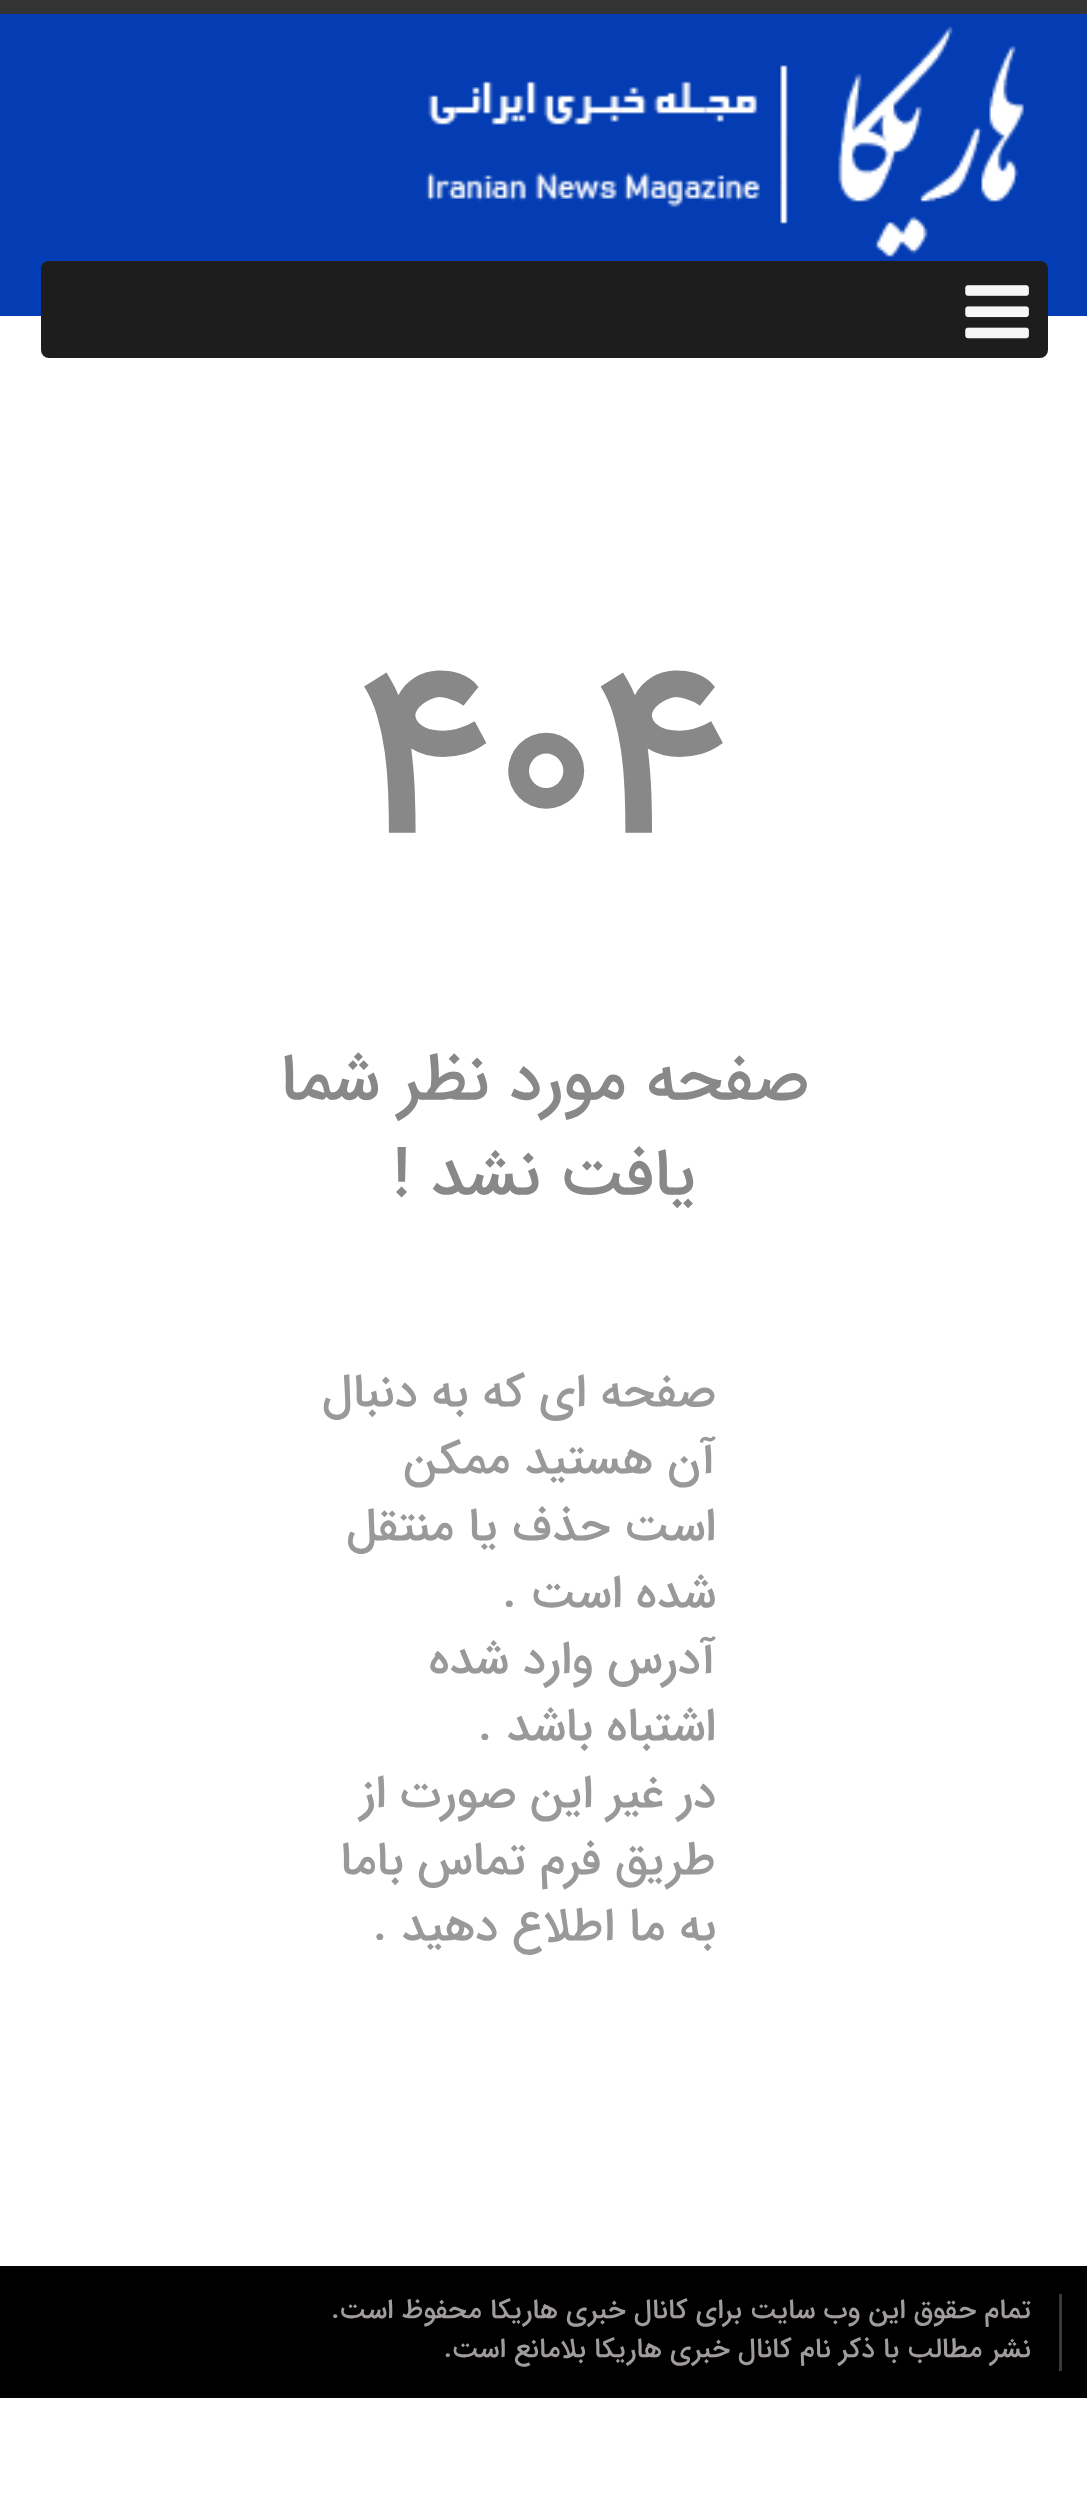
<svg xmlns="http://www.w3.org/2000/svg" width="1087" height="2495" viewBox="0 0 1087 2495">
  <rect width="100%" height="100%" fill="#fff"/>
  <path d="M0 14h1087v302H0z" fill="#043db3"/>
  <path d="M0 0h1087v14H0z" fill="#333"/>
  <image x="425" y="26" width="599" height="231" href="img/1.png"/>
  <rect x="41" y="261" width="1007" height="97" rx="8" fill="#1d1d1d"/>
  <image x="965" y="285" width="64" height="54" href="img/2.png"/>
  <path d="M0 2266h1087v132H0z" fill="#000"/>
  <path d="M1059 2294h3v77H1059z" fill="#393939"/>
  <text x="360" y="828" font-family="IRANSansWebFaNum" font-size="242" font-weight="500" fill="#888">404</text>
  <g font-family="IRANSansWebFaNum" font-size="66" font-weight="500" direction="rtl" fill="#888">
    <text x="809" y="1099">صفحه مورد نظر شما</text>
    <text x="696" y="1194">یافت نشد !</text>
  </g>
  <g font-family="IRANSansWebFaNum" font-size="46.75" font-weight="500" direction="rtl" fill="#999">
    <text x="716" y="1406">صفحه ای که به دنبال</text>
    <text x="716" y="1473">آن هستید ممکن</text>
    <text x="716" y="1540">است حذف یا منتقل</text>
    <text x="716" y="1607">شده است .</text>
    <text x="716" y="1673">آدرس وارد شده</text>
    <text x="716" y="1740">اشتباه باشد .</text>
    <text x="716" y="1807">در غیر این صورت از</text>
    <text x="716" y="1874">طریق فرم تماس باما</text>
    <text x="716" y="1940">به ما اطلاع دهید .</text>
  </g>
  <g font-family="IRANSansWebFaNum" font-size="27.5" font-weight="500" direction="rtl" fill="#a19c9c">
    <text x="1031" y="2318">تمام حقوق این وب سایت برای کانال خبری هاریکا محفوظ است.</text>
    <text x="1031" y="2357">نشر مطالب با ذکر نام کانال خبری هاریکا بلامانع است.</text>
  </g>
</svg>
